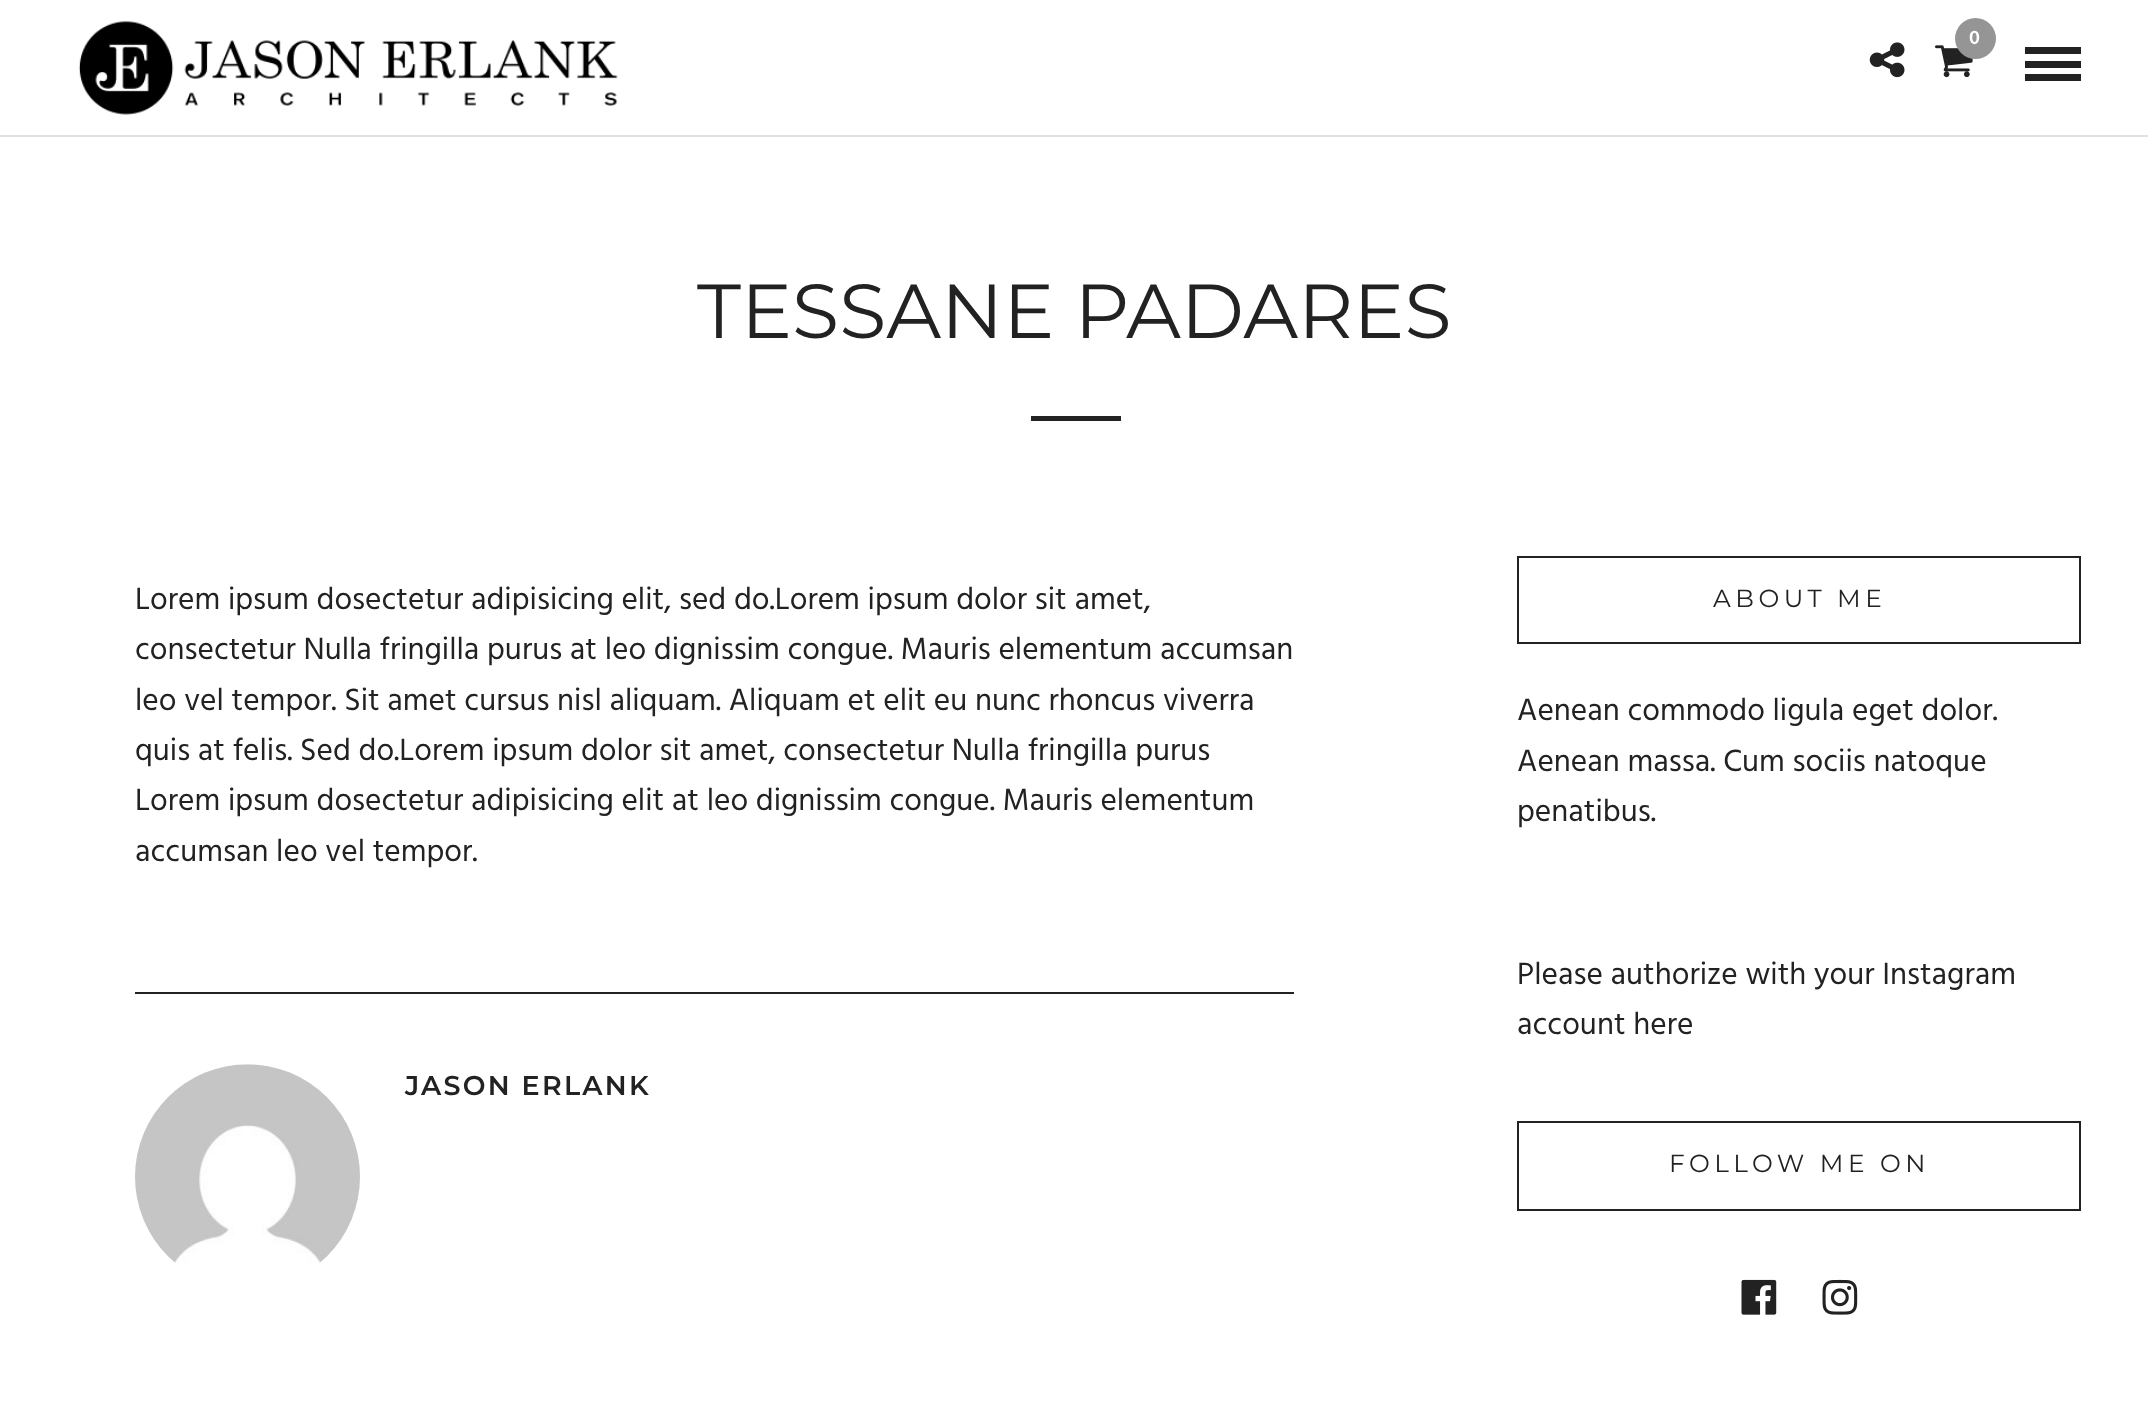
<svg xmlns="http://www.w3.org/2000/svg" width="2148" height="1421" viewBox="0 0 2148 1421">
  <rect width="100%" height="100%" fill="#fff"/>
  <path d="M0 135h2148v2H0z" fill="#e1e1e1"/>
  <image x="78" y="21" width="540" height="94" href="img/1.png"/>
  <image x="1935" y="45" width="38" height="33" href="img/2.png"/>
  <circle cx="1975.5" cy="38.5" r="20.5" fill="#959595"/>
  <image x="1869" y="42" width="36" height="36" href="img/3.png"/>
  <path d="M2025 47h56v7H2025z" fill="#222"/>
  <path d="M2025 61h56v7H2025z" fill="#222"/>
  <path d="M2025 74h56v7H2025z" fill="#222"/>
  <path d="M1031 416h90v5H1031z" fill="#222"/>
  <path d="M135 992h1159v2H135z" fill="#222"/>
  <image x="135" y="1064" width="225" height="199" href="img/4.png"/>
  <path d="M1518 557h562v86H1518z" fill="none" stroke="#222" stroke-width="2"/>
  <path d="M1518 1122h562v88H1518z" fill="none" stroke="#222" stroke-width="2"/>
  <image x="1741" y="1279" width="36" height="36" href="img/5.png"/>
  <image x="1822" y="1279" width="36" height="36" href="img/6.png"/>
  <text x="1969" y="44" font-family="Hind" font-size="20" font-weight="600" fill="#fff">0</text>
  <text x="697" y="338" font-family="Montserrat" font-size="76.5" fill="#222">TESSANE PADARES</text>
  <g font-family="Hind" font-size="31.5" fill="#222">
    <text x="135" y="609">Lorem ipsum dosectetur adipisicing elit, sed do.Lorem ipsum dolor sit amet,</text>
    <text x="135" y="659">consectetur Nulla fringilla purus at leo dignissim congue. Mauris elementum accumsan</text>
    <text x="135" y="710">leo vel tempor. Sit amet cursus nisl aliquam. Aliquam et elit eu nunc rhoncus viverra</text>
    <text x="135" y="760">quis at felis. Sed do.Lorem ipsum dolor sit amet, consectetur Nulla fringilla purus</text>
    <text x="135" y="810">Lorem ipsum dosectetur adipisicing elit at leo dignissim congue. Mauris elementum</text>
    <text x="135" y="861">accumsan leo vel tempor.</text>
  </g>
  <text x="405" y="1095" font-family="Montserrat" font-size="27" font-weight="600" letter-spacing="2.25" fill="#222">JASON ERLANK</text>
  <text x="1713" y="607" font-family="Montserrat" font-size="24.75" letter-spacing="4.5" fill="#222">ABOUT ME</text>
  <g font-family="Hind" font-size="31.5" fill="#222">
    <text x="1517" y="720">Aenean commodo ligula eget dolor.</text>
    <text x="1517" y="771">Aenean massa. Cum sociis natoque</text>
    <text x="1517" y="821">penatibus.</text>
    <text x="1517" y="984">Please authorize with your Instagram</text>
    <text x="1517" y="1034">account here</text>
  </g>
  <text x="1669" y="1172" font-family="Montserrat" font-size="24.75" letter-spacing="4.5" fill="#222">FOLLOW ME ON</text>
</svg>
